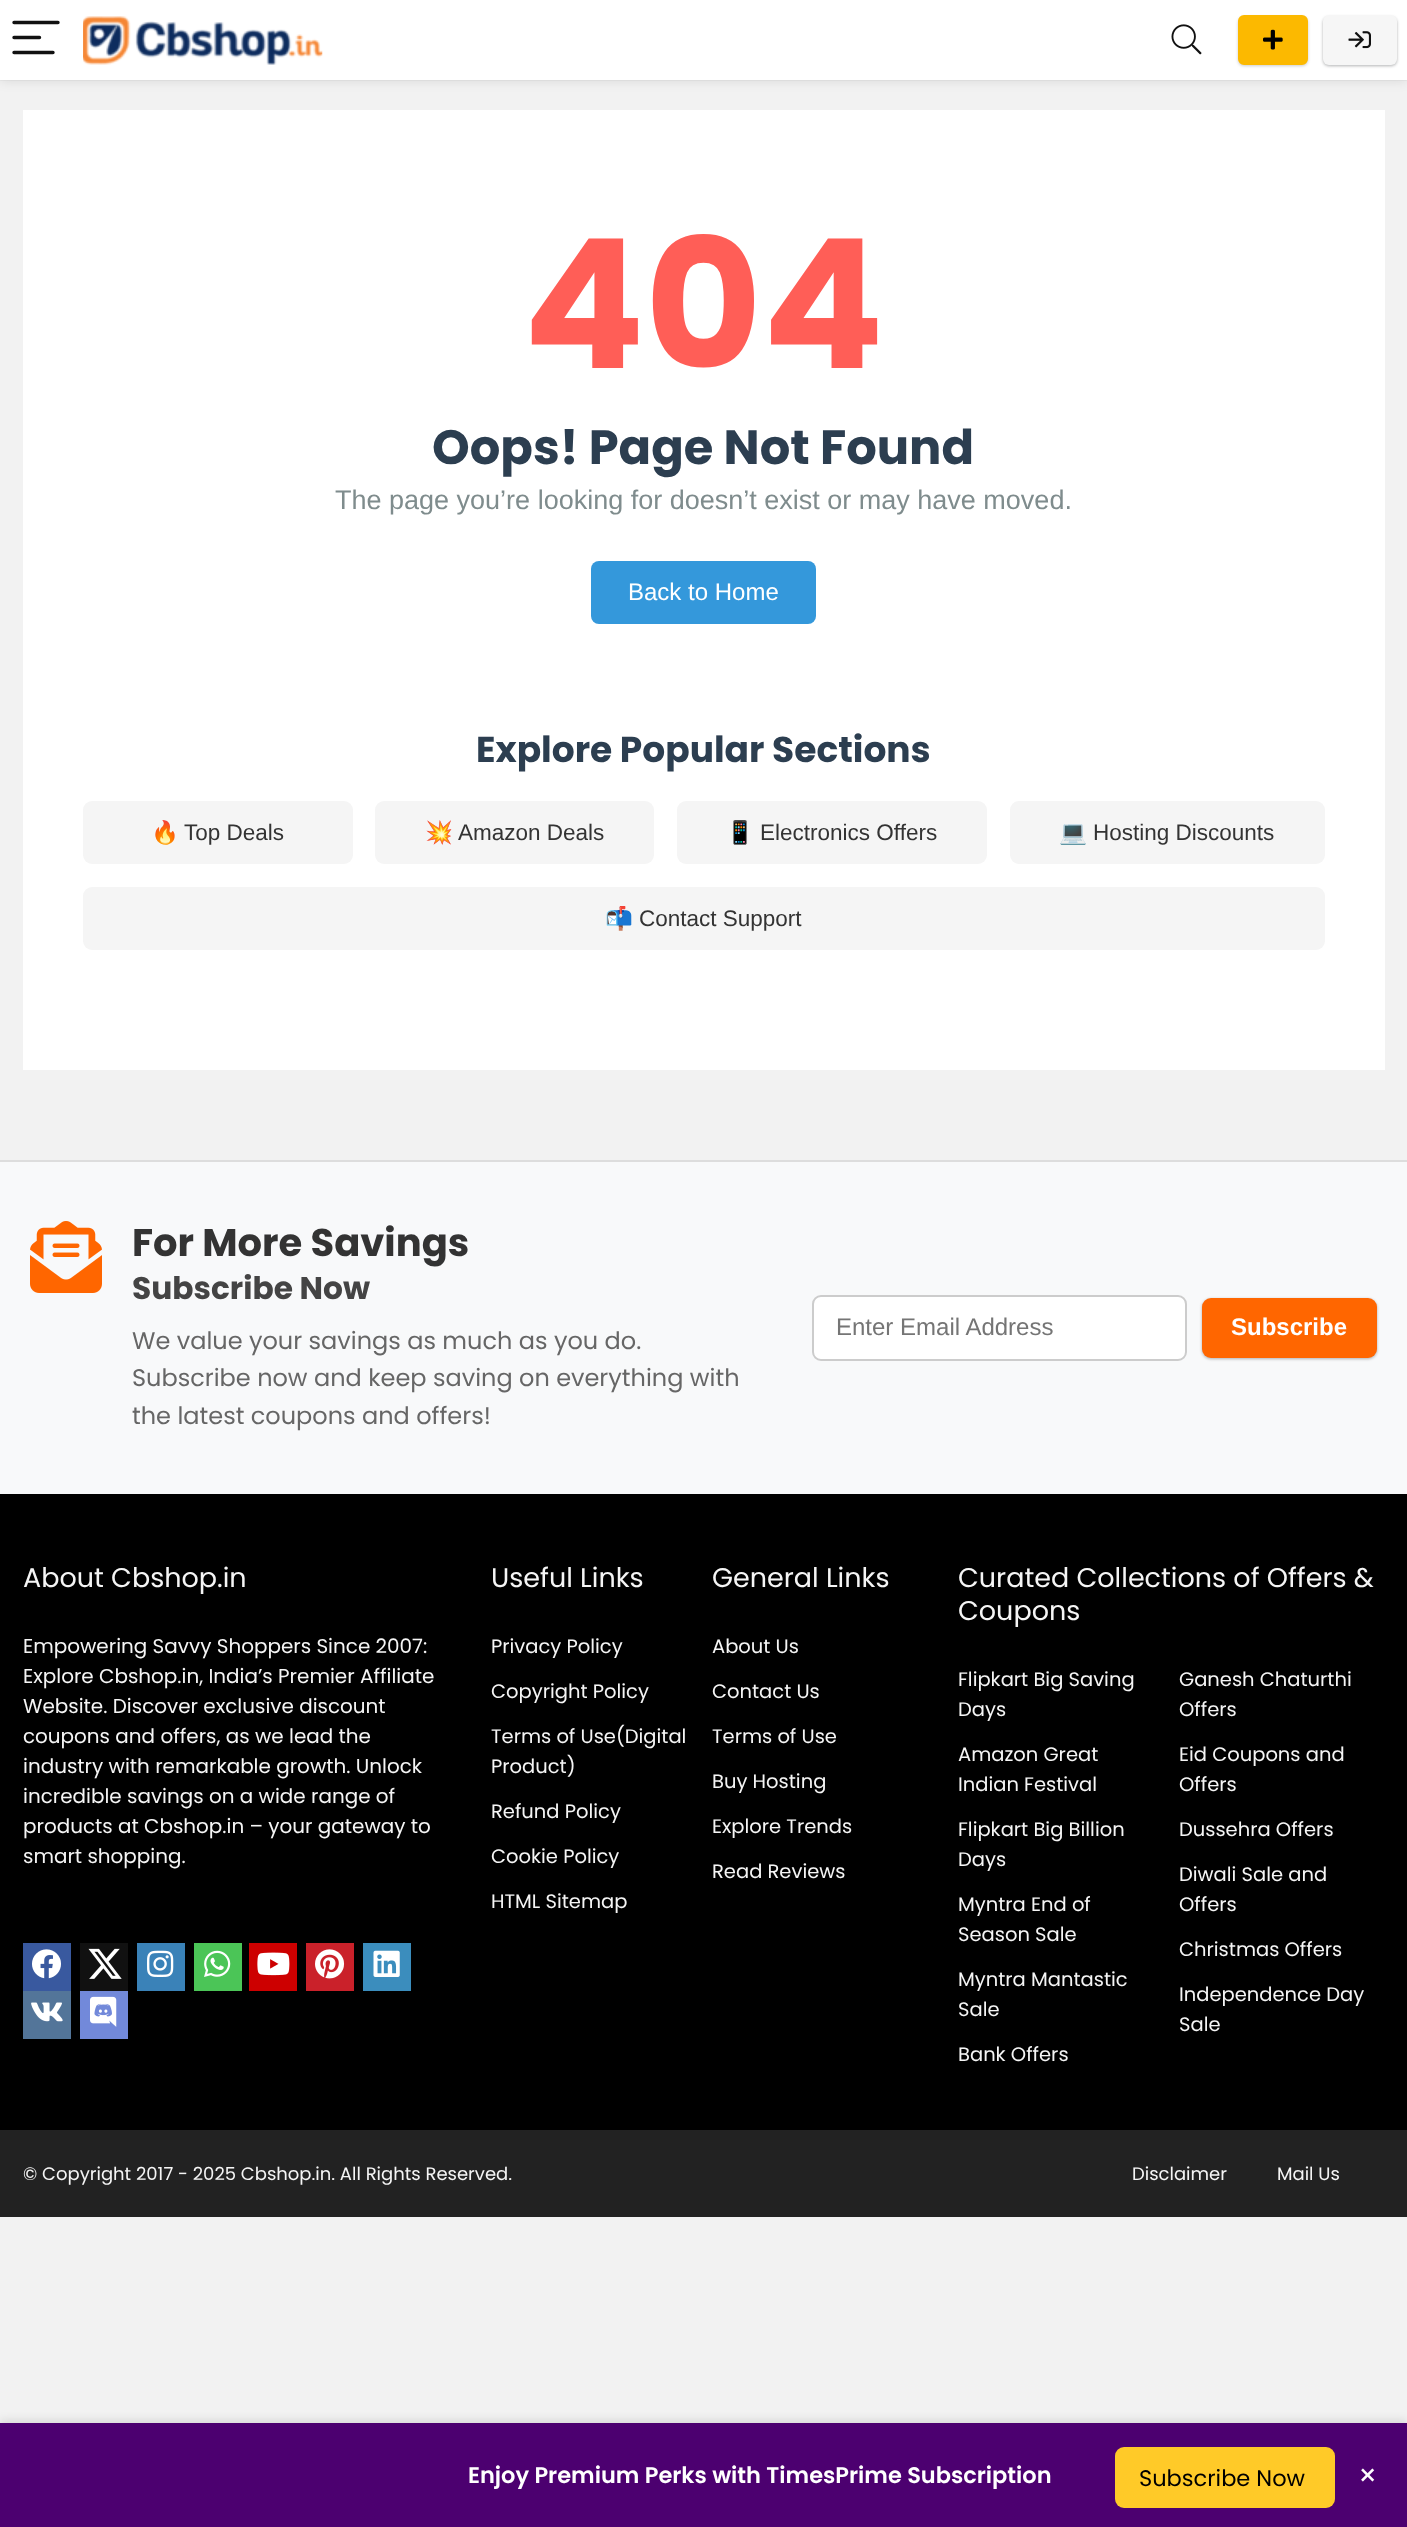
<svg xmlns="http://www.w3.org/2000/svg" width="1407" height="2527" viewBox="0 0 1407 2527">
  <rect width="100%" height="100%" fill="#f2f2f2"/>
  <path d="M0 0h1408v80H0z" fill="none" stroke="#00000008" stroke-width="2"/>
  <path d="M0 2h1407v79H0z" fill="#0000001a" filter="blur(6px)"/>
  <path d="M0 0h1407v80H0z" fill="#fff"/>
  <path d="M14 22.5H58M14 37.5H39.5M14 52.5H53" fill="none" stroke="#111" stroke-width="3.4" stroke-linecap="round"/>
  <image x="83" y="16" width="240" height="49" href="img/1.png"/>
  <image x="1171" y="24" width="31" height="31" href="img/2.png"/>
  <rect x="1238" y="17" width="70" height="49" rx="6" fill="#00000033" filter="blur(1.5px)"/>
  <rect x="1239" y="16" width="68" height="48" rx="5" fill="#fcb900" stroke="#fcb900" stroke-width="2"/>
  <image x="1263" y="29" width="20" height="21" href="img/3.png"/>
  <rect x="1323" y="17" width="74" height="49" rx="6" fill="#00000014" filter="blur(1.5px)"/>
  <rect x="1323" y="17" width="74" height="49" rx="6" fill="#3c40434d" filter="blur(1.5px)"/>
  <rect x="1323" y="15" width="74" height="50" rx="6" fill="#f6f6f6"/>
  <image x="1348" y="31" width="23" height="18" href="img/4.png"/>
  <path d="M23 110h1362v960H23z" fill="#fff"/>
  <rect x="591" y="561" width="225" height="63" rx="8" fill="#3498db"/>
  <rect x="83" y="801" width="270" height="63" rx="9" fill="#f5f5f5"/>
  <rect x="375" y="801" width="279" height="63" rx="9" fill="#f5f5f5"/>
  <rect x="677" y="801" width="310" height="63" rx="9" fill="#f5f5f5"/>
  <rect x="1010" y="801" width="315" height="63" rx="9" fill="#f5f5f5"/>
  <rect x="83" y="887" width="1242" height="63" rx="9" fill="#f5f5f5"/>
  <path d="M0 1162h1407v332H0z" fill="#f8f9fa"/>
  <path d="M0 1160h1407v2H0z" fill="#ddd"/>
  <image x="30" y="1221" width="72" height="72" href="img/5.png"/>
  <rect x="813" y="1296" width="373" height="64" rx="8" fill="#fff" stroke="#ccc" stroke-width="2"/>
  <rect x="1202" y="1299" width="175" height="60" rx="9" fill="#00000014" filter="blur(1.5px)"/>
  <rect x="1202" y="1299" width="175" height="60" rx="9" fill="#3c40434d" filter="blur(1.5px)"/>
  <rect x="1202" y="1298" width="175" height="60" rx="9" fill="#f60"/>
  <path d="M0 1494h1407v636H0z" fill="#000"/>
  <path d="M23 1943h48v48H23z" fill="#39599f"/>
  <image x="32" y="1949" width="29" height="30" href="img/6.png"/>
  <path d="M80 1943h48v48H80z" fill="#111"/>
  <image x="88" y="1948" width="34" height="31" href="img/7.png"/>
  <path d="M137 1943h48v48H137z" fill="#3a82b8"/>
  <image x="147" y="1950" width="27" height="27" href="img/8.png"/>
  <path d="M194 1943h48v48H194z" fill="#4bc557"/>
  <image x="204" y="1950" width="27" height="27" href="img/9.png"/>
  <path d="M249 1943h48v48H249z" fill="#cd0000"/>
  <image x="257" y="1952" width="33" height="24" href="img/10.png"/>
  <path d="M306 1943h48v48H306z" fill="#ca212a"/>
  <image x="315" y="1949" width="30" height="30" href="img/11.png"/>
  <path d="M363 1943h48v48H363z" fill="#3b8dbd"/>
  <image x="373" y="1950" width="27" height="27" href="img/12.png"/>
  <path d="M23 1991h48v48H23z" fill="#537599"/>
  <image x="31" y="2002" width="32" height="20" href="img/13.png"/>
  <path d="M80 1991h48v48H80z" fill="#7289da"/>
  <image x="90" y="1996" width="27" height="31" href="img/14.png"/>
  <path d="M0 2130h1407v87H0z" fill="#222"/>
  <path d="M0 2420h1407v105H0z" fill="#0000001a" filter="blur(4px)"/>
  <path d="M0 2423h1407v104H0z" fill="#4c0070"/>
  <rect x="1115" y="2447" width="220" height="61" rx="9" fill="#ffca28"/>
  <text x="523" y="368" font-family="Poppins" font-size="180" font-weight="bold" fill="#ff5e57">404</text>
  <text x="432" y="464" font-family="Poppins" font-size="48" font-weight="bold" fill="#2c3e50">Oops! Page Not Found</text>
  <text x="335" y="509" font-family="Liberation Sans" font-size="27" fill="#7f8c8d">The page you’re looking for doesn’t exist or may have moved.</text>
  <text x="628" y="600" font-family="Liberation Sans" font-size="24" fill="#fff">Back to Home</text>
  <text x="476" y="762" font-family="Poppins" font-size="36" font-weight="bold" fill="#2c3e50">Explore Popular Sections</text>
  <text x="151" y="840" font-family="Noto Color Emoji" font-size="22.5" fill="#333">🔥</text>
  <text x="184" y="840" font-family="Liberation Sans" font-size="22.5" fill="#333">Top Deals</text>
  <text x="425" y="840" font-family="Noto Color Emoji" font-size="22.5" fill="#333">💥</text>
  <text x="458" y="840" font-family="Liberation Sans" font-size="22.5" fill="#333">Amazon Deals</text>
  <text x="726" y="840" font-family="Noto Color Emoji" font-size="22.5" fill="#333">📱</text>
  <text x="760" y="840" font-family="Liberation Sans" font-size="22.5" fill="#333">Electronics Offers</text>
  <text x="1059" y="840" font-family="Noto Color Emoji" font-size="22.5" fill="#333">💻</text>
  <text x="1093" y="840" font-family="Liberation Sans" font-size="22.5" fill="#333">Hosting Discounts</text>
  <text x="605" y="926" font-family="Noto Color Emoji" font-size="22.5" fill="#333">📬</text>
  <text x="639" y="926" font-family="Liberation Sans" font-size="22.5" fill="#333">Contact Support</text>
  <text x="132" y="1256" font-family="Poppins" font-size="38.5" font-weight="bold" fill="#333">For More Savings</text>
  <text x="132" y="1299" font-family="Poppins" font-size="31.25" font-weight="bold" fill="#444">Subscribe Now</text>
  <g font-family="Poppins" font-size="24" fill="#666">
    <text x="132" y="1349">We value your savings as much as you do.</text>
    <text x="132" y="1386">Subscribe now and keep saving on everything with</text>
    <text x="132" y="1424">the latest coupons and offers!</text>
  </g>
  <text x="836" y="1335" font-family="Liberation Sans" font-size="24" fill="#757575">Enter Email Address</text>
  <text x="1231" y="1335" font-family="Liberation Sans" font-size="24" font-weight="bold" fill="#fff">Subscribe</text>
  <text x="23" y="1587" font-family="Poppins" font-size="27" fill="#f5f5f5">About Cbshop.in</text>
  <g font-family="Poppins" font-size="19.95" fill="#f5f5f5">
    <text x="23" y="1653">Empowering Savvy Shoppers Since 2007:</text>
    <text x="23" y="1683">Explore Cbshop.in, India’s Premier Affiliate</text>
    <text x="23" y="1713">Website. Discover exclusive discount</text>
    <text x="23" y="1743">coupons and offers, as we lead the</text>
    <text x="23" y="1773">industry with remarkable growth. Unlock</text>
    <text x="23" y="1803">incredible savings on a wide range of</text>
    <text x="23" y="1833">products at Cbshop.in – your gateway to</text>
    <text x="23" y="1863">smart shopping.</text>
  </g>
  <text x="491" y="1587" font-family="Poppins" font-size="27" fill="#f5f5f5">Useful Links</text>
  <g font-family="Poppins" font-size="19.5" fill="#f5f5f5">
    <text x="491" y="1653">Privacy Policy</text>
    <text x="491" y="1698">Copyright Policy</text>
    <text x="491" y="1743">Terms of Use(Digital</text>
    <text x="491" y="1773">Product)</text>
    <text x="491" y="1818">Refund Policy</text>
    <text x="491" y="1863">Cookie Policy</text>
    <text x="491" y="1908">HTML Sitemap</text>
  </g>
  <text x="712" y="1587" font-family="Poppins" font-size="27" fill="#f5f5f5">General Links</text>
  <g font-family="Poppins" font-size="19.5" fill="#f5f5f5">
    <text x="712" y="1653">About Us</text>
    <text x="712" y="1698">Contact Us</text>
    <text x="712" y="1743">Terms of Use</text>
    <text x="712" y="1788">Buy Hosting</text>
    <text x="712" y="1833">Explore Trends</text>
    <text x="712" y="1878">Read Reviews</text>
  </g>
  <g font-family="Poppins" font-size="27" fill="#f5f5f5">
    <text x="958" y="1587">Curated Collections of Offers &amp;</text>
    <text x="958" y="1620">Coupons</text>
  </g>
  <g font-family="Poppins" font-size="19.5" fill="#f5f5f5">
    <text x="958" y="1686">Flipkart Big Saving</text>
    <text x="958" y="1716">Days</text>
    <text x="958" y="1761">Amazon Great</text>
    <text x="958" y="1791">Indian Festival</text>
    <text x="958" y="1836">Flipkart Big Billion</text>
    <text x="958" y="1866">Days</text>
    <text x="958" y="1911">Myntra End of</text>
    <text x="958" y="1941">Season Sale</text>
    <text x="958" y="1986">Myntra Mantastic</text>
    <text x="958" y="2016">Sale</text>
    <text x="958" y="2061">Bank Offers</text>
    <text x="1179" y="1686">Ganesh Chaturthi</text>
    <text x="1179" y="1716">Offers</text>
    <text x="1179" y="1761">Eid Coupons and</text>
    <text x="1179" y="1791">Offers</text>
    <text x="1179" y="1836">Dussehra Offers</text>
    <text x="1179" y="1881">Diwali Sale and</text>
    <text x="1179" y="1911">Offers</text>
    <text x="1179" y="1956">Christmas Offers</text>
    <text x="1179" y="2001">Independence Day</text>
    <text x="1179" y="2031">Sale</text>
  </g>
  <g font-family="Poppins" font-size="18" fill="#f5f5f5">
    <text x="23" y="2180">© Copyright 2017 - 2025 Cbshop.in. All Rights Reserved.</text>
    <text x="1132" y="2180">Disclaimer</text>
    <text x="1277" y="2180">Mail Us</text>
  </g>
  <text x="468" y="2483" font-family="Poppins" font-size="22.5" font-weight="600" fill="#fff">Enjoy Premium Perks with TimesPrime Subscription</text>
  <text x="1139" y="2486" font-family="Poppins" font-size="22.5" fill="#000">Subscribe Now</text>
  <text x="1358" y="2486" font-family="Poppins" font-size="30" fill="#fff">×</text>
</svg>
